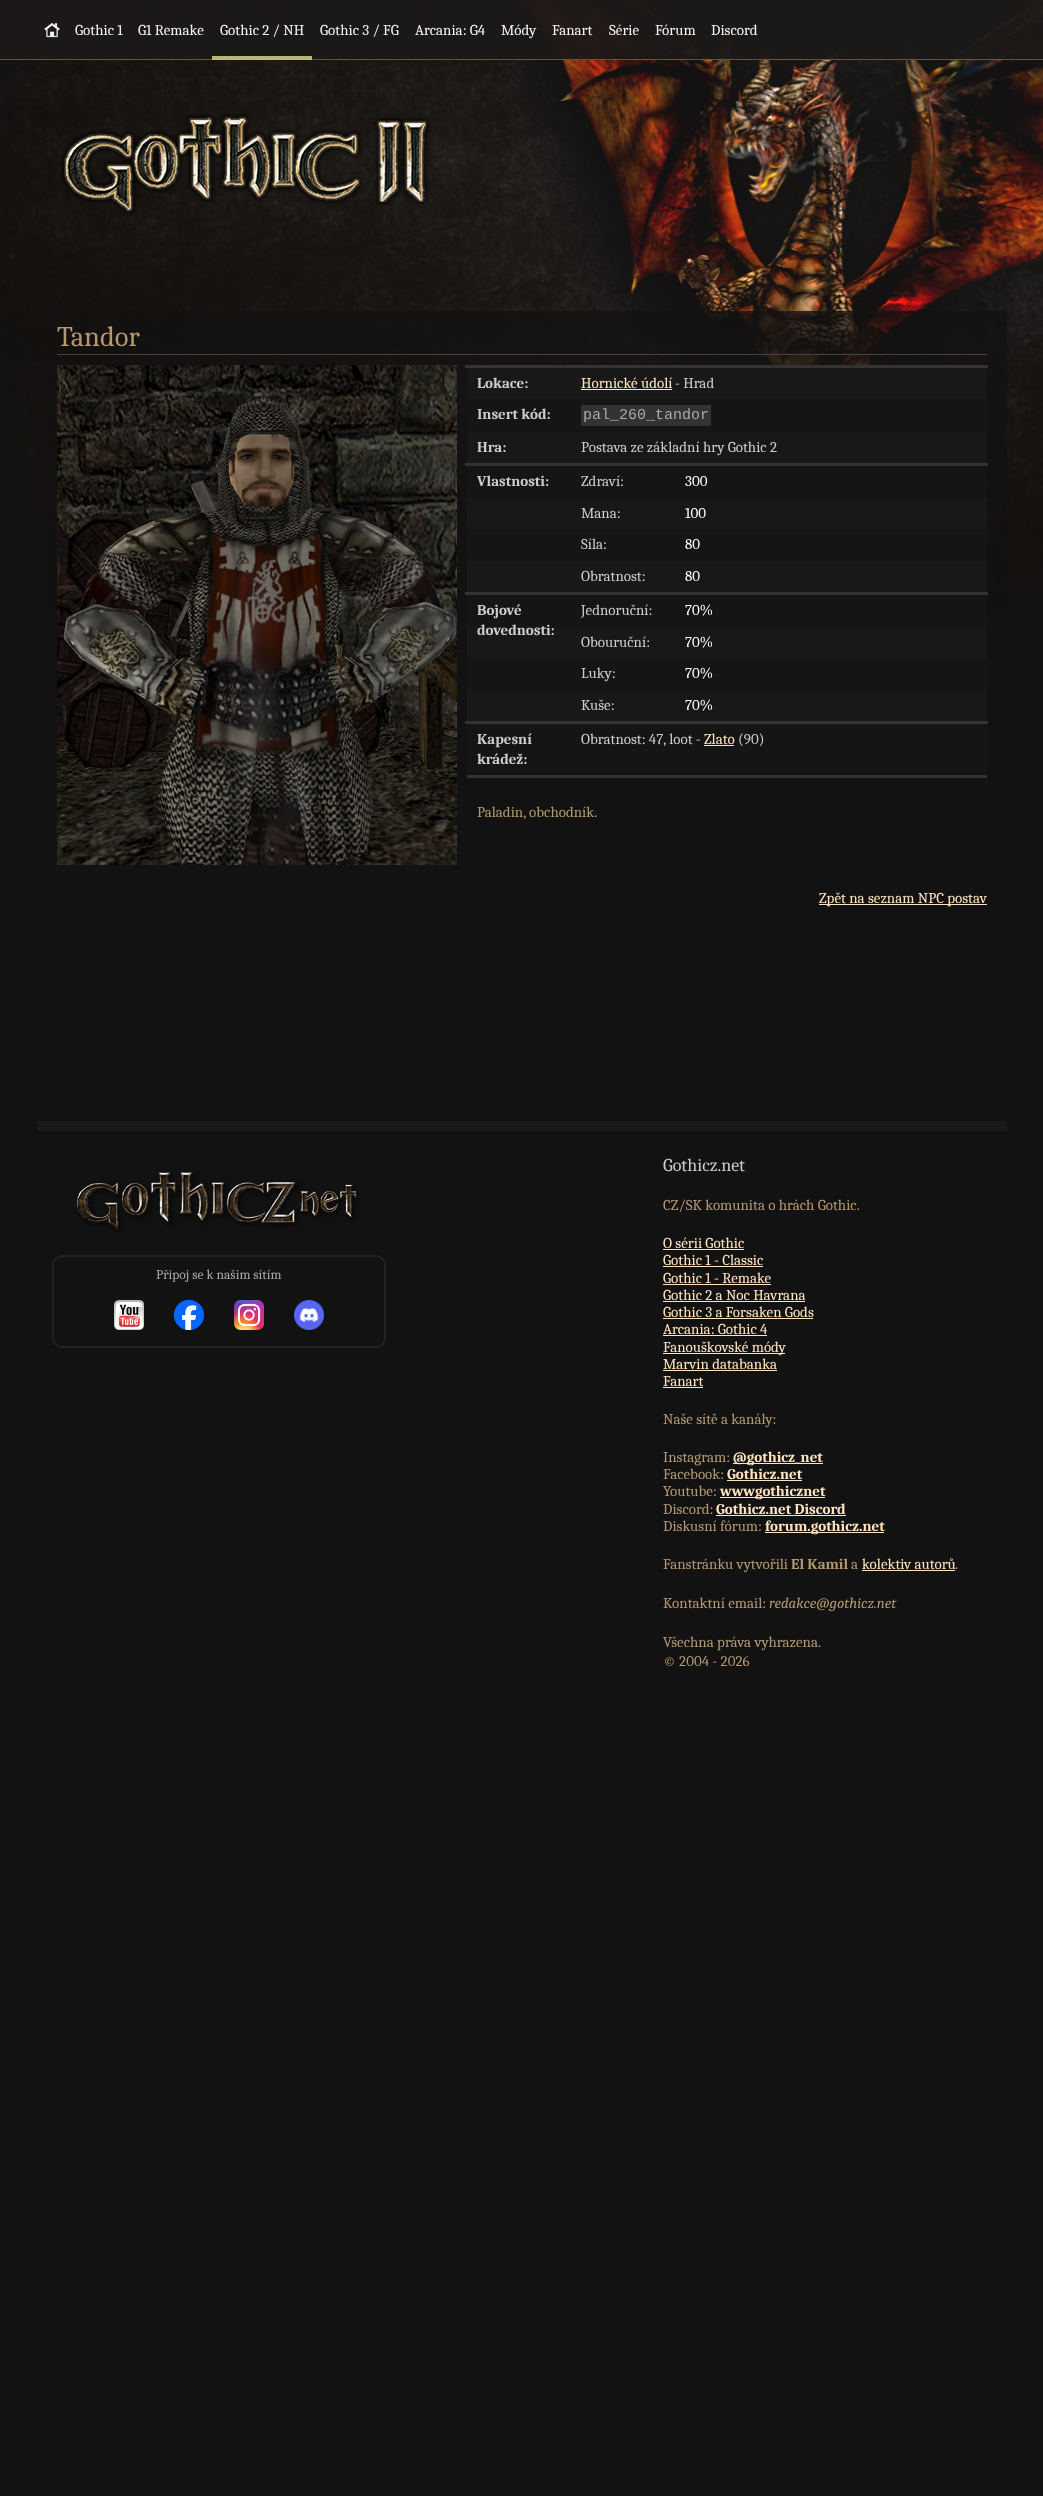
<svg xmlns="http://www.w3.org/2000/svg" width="1043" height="2496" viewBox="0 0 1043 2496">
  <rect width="100%" height="100%" fill="#131212"/>
  <image x="0" y="0" width="1043" height="611" href="img/1.png"/>
  <path d="M0 0h1043v60H0z" fill="#1b1918f2"/>
  <path d="M0 59h1043v1H0z" fill="#6b563bf2"/>
  <image x="44" y="22" width="16" height="16" href="img/2.png"/>
  <path d="M212 56h100v4H212z" fill="#c3bf7df2"/>
  <image x="60" y="114" width="370" height="101" href="img/3.png"/>
  <path d="M47 311h960v300H47z" fill="#131111cc"/>
  <path d="M57 354h930v1H57z" fill="#4b4040"/>
  <image x="57" y="365" width="400" height="500" href="img/4.png"/>
  <path d="M467 399h520v376H467z" fill="#151515"/>
  <path d="M467 775h520v3H467z" fill="#333"/>
  <path d="M467 368h520v31H467z" fill="#181818"/>
  <path d="M465 365h523v3H465z" fill="#333"/>
  <path d="M581 389h91v1H581z" fill="#ffe4bf"/>
  <path d="M581 405h130v21H581z" fill="#333"/>
  <path d="M467 432h520v31H467z" fill="#181818"/>
  <path d="M465 463h523v3H465z" fill="#333"/>
  <path d="M467 498h520v31H467z" fill="#181818"/>
  <path d="M467 561h520v31H467z" fill="#181818"/>
  <path d="M465 592h523v3H465z" fill="#333"/>
  <path d="M467 627h520v31H467z" fill="#181818"/>
  <path d="M467 690h520v31H467z" fill="#181818"/>
  <path d="M465 721h523v3H465z" fill="#333"/>
  <path d="M704 745h30v1H704z" fill="#ffe4bf"/>
  <path d="M819 904h168v1H819z" fill="#ffe4bf"/>
  <path d="M37 1121h970v10H37z" fill="#1b1918"/>
  <image x="76" y="1172" width="284" height="60" href="img/5.png"/>
  <rect x="53" y="1256" width="332" height="91" rx="9" fill="none" stroke="#222" stroke-width="2"/>
  <image x="114" y="1300" width="30" height="30" href="img/6.png"/>
  <image x="174" y="1300" width="30" height="30" href="img/7.png"/>
  <image x="234" y="1300" width="30" height="30" href="img/8.png"/>
  <image x="294" y="1300" width="30" height="30" href="img/9.png"/>
  <path d="M663 1249h81v1H663z" fill="#ffe4bf"/>
  <path d="M663 1266h100v1H663z" fill="#ffe4bf"/>
  <path d="M663 1284h108v1H663z" fill="#ffe4bf"/>
  <path d="M663 1301h142v1H663z" fill="#ffe4bf"/>
  <path d="M663 1318h150v1H663z" fill="#ffe4bf"/>
  <path d="M663 1335h104v1H663z" fill="#ffe4bf"/>
  <path d="M663 1353h122v1H663z" fill="#ffe4bf"/>
  <path d="M663 1370h114v1H663z" fill="#ffe4bf"/>
  <path d="M663 1387h40v1H663z" fill="#ffe4bf"/>
  <path d="M733 1463h90v1H733z" fill="#ffe4bf"/>
  <path d="M727 1480h75v1H727z" fill="#ffe4bf"/>
  <path d="M720 1497h105v1H720z" fill="#ffe4bf"/>
  <path d="M716 1515h130v1H716z" fill="#ffe4bf"/>
  <path d="M765 1532h119v1H765z" fill="#ffe4bf"/>
  <path d="M862 1570h93v1H862z" fill="#ffe4bf"/>
  <g font-family="Caladea" font-size="15" fill="#f4f3f3">
    <text x="75" y="35">Gothic 1</text>
    <text x="138" y="35">G1 Remake</text>
    <text x="220" y="35">Gothic 2 / NH</text>
    <text x="320" y="35">Gothic 3 / FG</text>
    <text x="415" y="35">Arcania: G4</text>
    <text x="501" y="35">Módy</text>
    <text x="552" y="35">Fanart</text>
    <text x="609" y="35">Série</text>
    <text x="655" y="35">Fórum</text>
    <text x="711" y="35">Discord</text>
  </g>
  <text x="57" y="346" font-family="Caladea" font-size="28.5" fill="#b49871">Tandor</text>
  <text x="477" y="388" font-family="Caladea" font-size="15" font-weight="bold" fill="#ccc">Lokace:</text>
  <text x="581" y="388" font-family="Caladea" font-size="15" fill="#ffe4bf">Hornické údolí</text>
  <text x="675" y="388" font-family="Caladea" font-size="15" fill="#ccc">- Hrad</text>
  <text x="477" y="419" font-family="Caladea" font-size="15" font-weight="bold" fill="#ccc">Insert kód:</text>
  <text x="583" y="419" font-family="Liberation Mono" font-size="15" fill="#aaa">pal_260_tandor</text>
  <text x="477" y="452" font-family="Caladea" font-size="15" font-weight="bold" fill="#ccc">Hra:</text>
  <text x="581" y="452" font-family="Caladea" font-size="15" fill="#ccc">Postava ze základní hry Gothic 2</text>
  <text x="477" y="486" font-family="Caladea" font-size="15" font-weight="bold" fill="#ccc">Vlastnosti:</text>
  <text x="581" y="486" font-family="Caladea" font-size="15" fill="#ccc">Zdraví:</text>
  <text x="685" y="486" font-family="Caladea" font-size="15" fill="#fff">300</text>
  <text x="581" y="518" font-family="Caladea" font-size="15" fill="#ccc">Mana:</text>
  <text x="685" y="518" font-family="Caladea" font-size="15" fill="#fff">100</text>
  <text x="581" y="549" font-family="Caladea" font-size="15" fill="#ccc">Síla:</text>
  <text x="685" y="549" font-family="Caladea" font-size="15" fill="#fff">80</text>
  <text x="581" y="581" font-family="Caladea" font-size="15" fill="#ccc">Obratnost:</text>
  <text x="685" y="581" font-family="Caladea" font-size="15" fill="#fff">80</text>
  <g font-family="Caladea" font-size="15" font-weight="bold" fill="#ccc">
    <text x="477" y="615">Bojové</text>
    <text x="477" y="635">dovednosti:</text>
  </g>
  <text x="581" y="615" font-family="Caladea" font-size="15" fill="#ccc">Jednoruční:</text>
  <text x="685" y="615" font-family="Caladea" font-size="15" fill="#fff">70%</text>
  <text x="581" y="647" font-family="Caladea" font-size="15" fill="#ccc">Obouruční:</text>
  <text x="685" y="647" font-family="Caladea" font-size="15" fill="#fff">70%</text>
  <text x="581" y="678" font-family="Caladea" font-size="15" fill="#ccc">Luky:</text>
  <text x="685" y="678" font-family="Caladea" font-size="15" fill="#fff">70%</text>
  <text x="581" y="710" font-family="Caladea" font-size="15" fill="#ccc">Kuše:</text>
  <text x="685" y="710" font-family="Caladea" font-size="15" fill="#fff">70%</text>
  <g font-family="Caladea" font-size="15" font-weight="bold" fill="#ccc">
    <text x="477" y="744">Kapesní</text>
    <text x="477" y="764">krádež:</text>
  </g>
  <text x="581" y="744" font-family="Caladea" font-size="15" fill="#ccc">Obratnost: 47, loot -</text>
  <text x="704" y="744" font-family="Caladea" font-size="15" fill="#ffe4bf">Zlato</text>
  <text x="738" y="744" font-family="Caladea" font-size="15" fill="#ccc">(90)</text>
  <text x="477" y="817" font-family="Caladea" font-size="15" fill="#b49871">Paladin, obchodník.</text>
  <text x="819" y="903" font-family="Caladea" font-size="15" fill="#ffe4bf">Zpět na seznam NPC postav</text>
  <text x="156" y="1279" font-family="Caladea" font-size="13.5" fill="#aaa">Připoj se k našim sítím</text>
  <text x="663" y="1171" font-family="Caladea" font-size="18" fill="#ccc">Gothicz.net</text>
  <text x="663" y="1210" font-family="Caladea" font-size="15" fill="#b49871">CZ/SK komunita o hrách Gothic.</text>
  <g font-family="Caladea" font-size="15" fill="#ffe4bf">
    <text x="663" y="1248">O sérii Gothic</text>
    <text x="663" y="1265">Gothic 1 - Classic</text>
    <text x="663" y="1283">Gothic 1 - Remake</text>
    <text x="663" y="1300">Gothic 2 a Noc Havrana</text>
    <text x="663" y="1317">Gothic 3 a Forsaken Gods</text>
    <text x="663" y="1334">Arcania: Gothic 4</text>
    <text x="663" y="1352">Fanouškovské módy</text>
    <text x="663" y="1369">Marvin databanka</text>
    <text x="663" y="1386">Fanart</text>
  </g>
  <g font-family="Caladea" font-size="15" fill="#b49871">
    <text x="663" y="1424">Naše sítě a kanály:</text>
    <text x="663" y="1462">Instagram:</text>
  </g>
  <text x="733" y="1462" font-family="Caladea" font-size="15" font-weight="bold" fill="#ffe4bf">@gothicz_net</text>
  <text x="663" y="1479" font-family="Caladea" font-size="15" fill="#b49871">Facebook:</text>
  <text x="727" y="1479" font-family="Caladea" font-size="15" font-weight="bold" fill="#ffe4bf">Gothicz.net</text>
  <text x="663" y="1496" font-family="Caladea" font-size="15" fill="#b49871">Youtube:</text>
  <text x="720" y="1496" font-family="Caladea" font-size="15" font-weight="bold" fill="#ffe4bf">wwwgothicznet</text>
  <text x="663" y="1514" font-family="Caladea" font-size="15" fill="#b49871">Discord:</text>
  <text x="716" y="1514" font-family="Caladea" font-size="15" font-weight="bold" fill="#ffe4bf">Gothicz.net Discord</text>
  <text x="663" y="1531" font-family="Caladea" font-size="15" fill="#b49871">Diskusní fórum:</text>
  <text x="765" y="1531" font-family="Caladea" font-size="15" font-weight="bold" fill="#ffe4bf">forum.gothicz.net</text>
  <text x="663" y="1569" font-family="Caladea" font-size="15" fill="#b49871">Fanstránku vytvořili</text>
  <text x="791" y="1569" font-family="Caladea" font-size="15" font-weight="bold" fill="#b49871">El Kamil</text>
  <text x="851" y="1569" font-family="Caladea" font-size="15" fill="#b49871">a</text>
  <text x="862" y="1569" font-family="Caladea" font-size="15" fill="#ffe4bf">kolektiv autorů</text>
  <g font-family="Caladea" font-size="15" fill="#b49871">
    <text x="955" y="1569">.</text>
    <text x="663" y="1608">Kontaktní email:</text>
  </g>
  <text x="769" y="1608" font-family="Caladea" font-size="15" font-style="italic" fill="#b49871">redakce@gothicz.net</text>
  <g font-family="Caladea" font-size="15" fill="#b49871">
    <text x="663" y="1647">Všechna práva vyhrazena.</text>
    <text x="663" y="1666">© 2004 - 2026</text>
  </g>
</svg>
